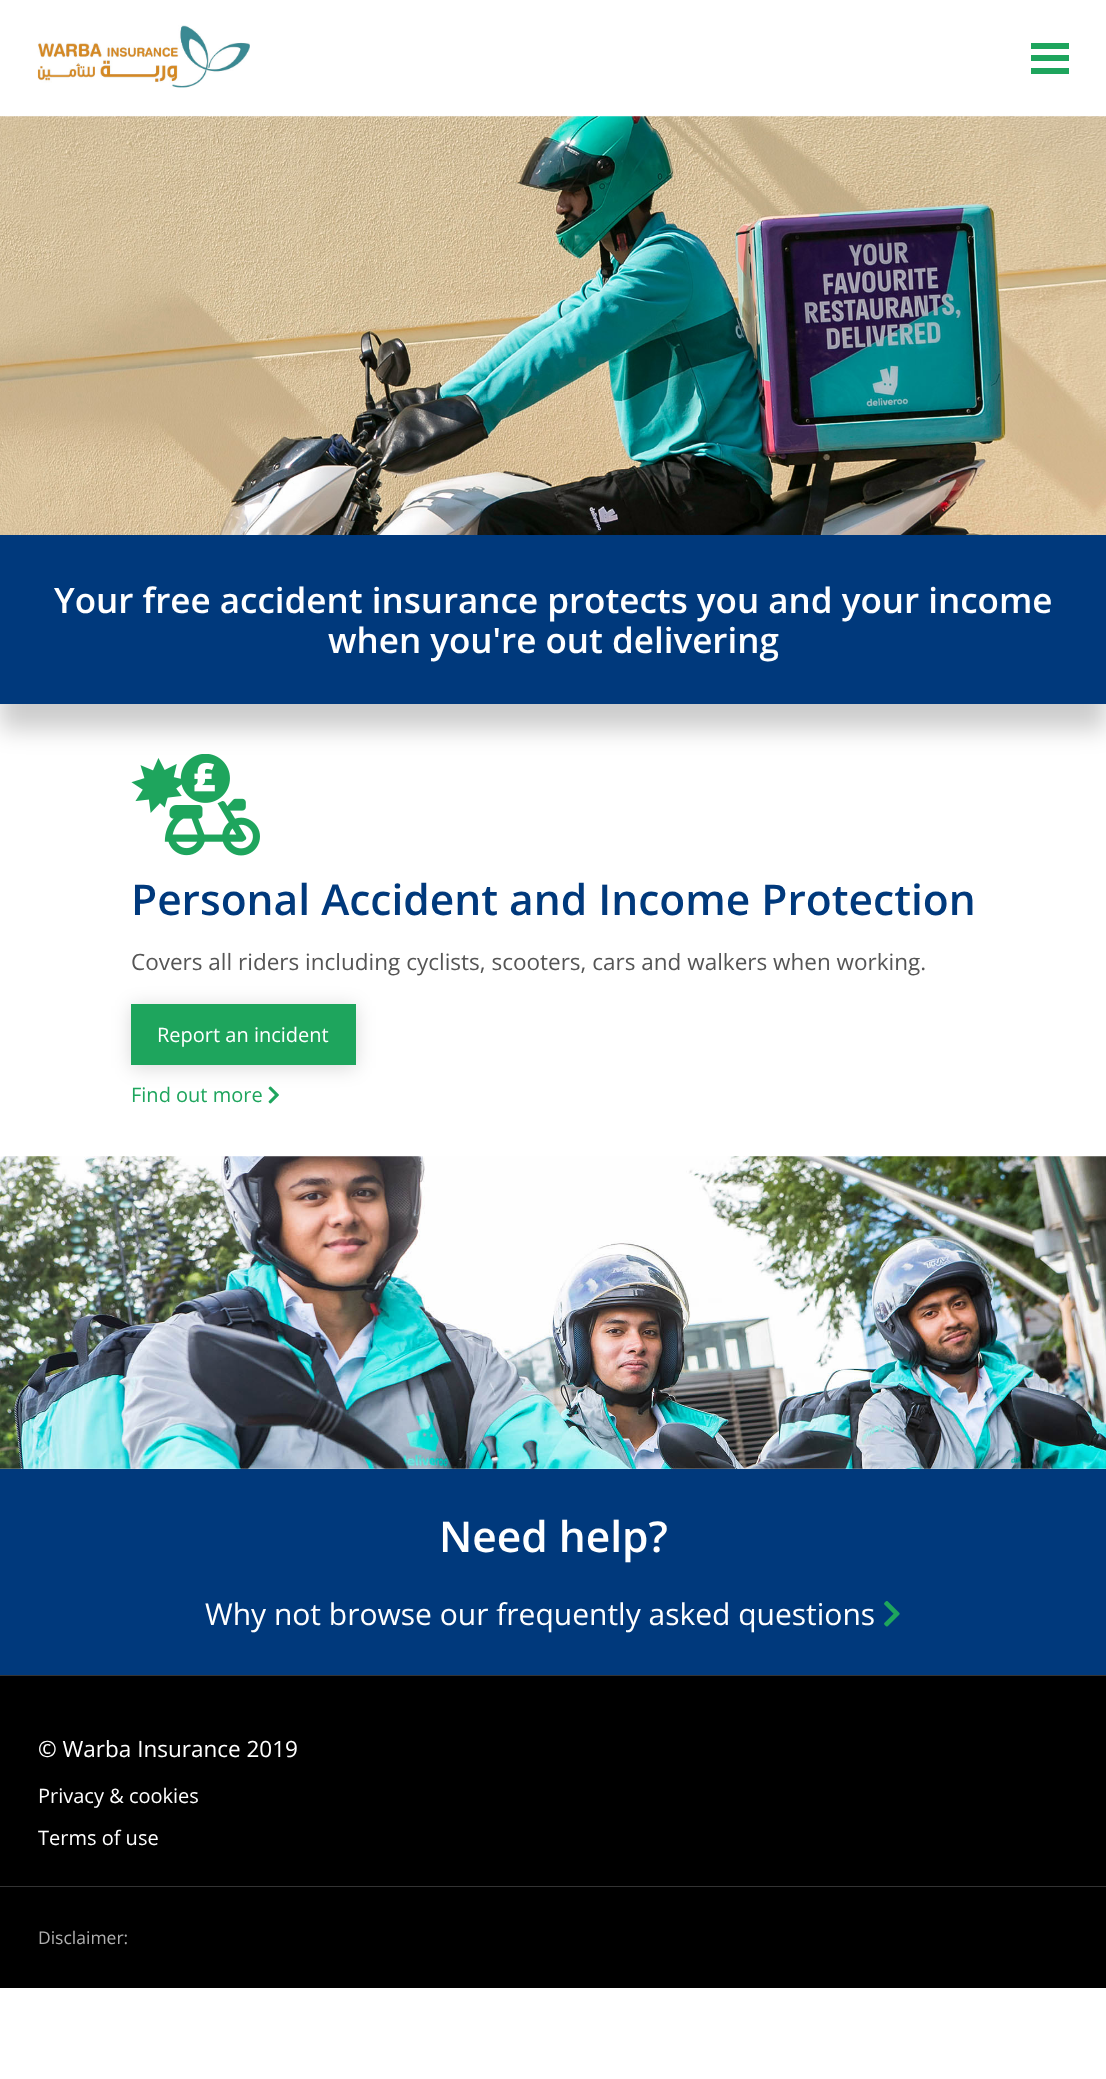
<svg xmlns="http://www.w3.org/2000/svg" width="1106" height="2079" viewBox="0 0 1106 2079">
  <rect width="100%" height="100%" fill="#fff"/>
  <image x="37" y="25" width="213" height="63" href="img/1.png"/>
  <path d="M1031 43h38v6H1031z" fill="#1ea55d"/>
  <path d="M1031 55h38v6H1031z" fill="#1ea55d"/>
  <path d="M1031 68h38v6H1031z" fill="#1ea55d"/>
  <path d="M0 141h1106v588H0z" fill="#00000033" filter="blur(12.5px)"/>
  <image x="0" y="116" width="1106" height="419" href="img/2.png"/>
  <path d="M0 535h1106v169H0z" fill="#00397c"/>
  <image x="131" y="754" width="129" height="102" href="img/3.png"/>
  <path d="M131 1006h225v62H131z" fill="#00000026" filter="blur(9.5px)"/>
  <path d="M131 1004h225v61H131z" fill="#1ea55d"/>
  <image x="268" y="1086" width="11" height="18" href="img/4.png"/>
  <image x="0" y="1156" width="1106" height="313" href="img/5.png"/>
  <path d="M0 1469h1106v206H0z" fill="#00397c"/>
  <image x="884" y="1601" width="16" height="26" href="img/6.png"/>
  <path d="M0 1676h1106v312H0z" fill="#000"/>
  <path d="M0 1675h1106v1H0z" fill="#333"/>
  <path d="M0 1886h1106v1H0z" fill="#333"/>
  <g font-family="Open Sans" font-size="35" font-weight="600" fill="#fff">
    <text x="54" y="613">Your free accident insurance protects you and your income</text>
    <text x="328" y="653">when you're out delivering</text>
  </g>
  <text x="131" y="915" font-family="Open Sans" font-size="42.5" font-weight="600" fill="#00397c">Personal Accident and Income Protection</text>
  <text x="131" y="970" font-family="Open Sans" font-size="22.5" fill="#555">Covers all riders including cyclists, scooters, cars and walkers when working.</text>
  <text x="157" y="1042" font-family="Open Sans" font-size="20" fill="#fff">Report an incident</text>
  <text x="131" y="1102" font-family="Open Sans" font-size="20" fill="#1ea55d">Find out more</text>
  <text x="439" y="1552" font-family="Open Sans" font-size="42.5" font-weight="600" fill="#fff">Need help?</text>
  <text x="205" y="1625" font-family="Open Sans" font-size="30" fill="#fff">Why not browse our frequently asked questions</text>
  <text x="38" y="1757" font-family="Open Sans" font-size="22.5" fill="#fff">© Warba Insurance 2019</text>
  <g font-family="Open Sans" font-size="20" fill="#fff">
    <text x="38" y="1803">Privacy &amp; cookies</text>
    <text x="38" y="1845">Terms of use</text>
  </g>
  <text x="38" y="1944" font-family="Open Sans" font-size="17.5" fill="#afafaf">Disclaimer:</text>
</svg>
